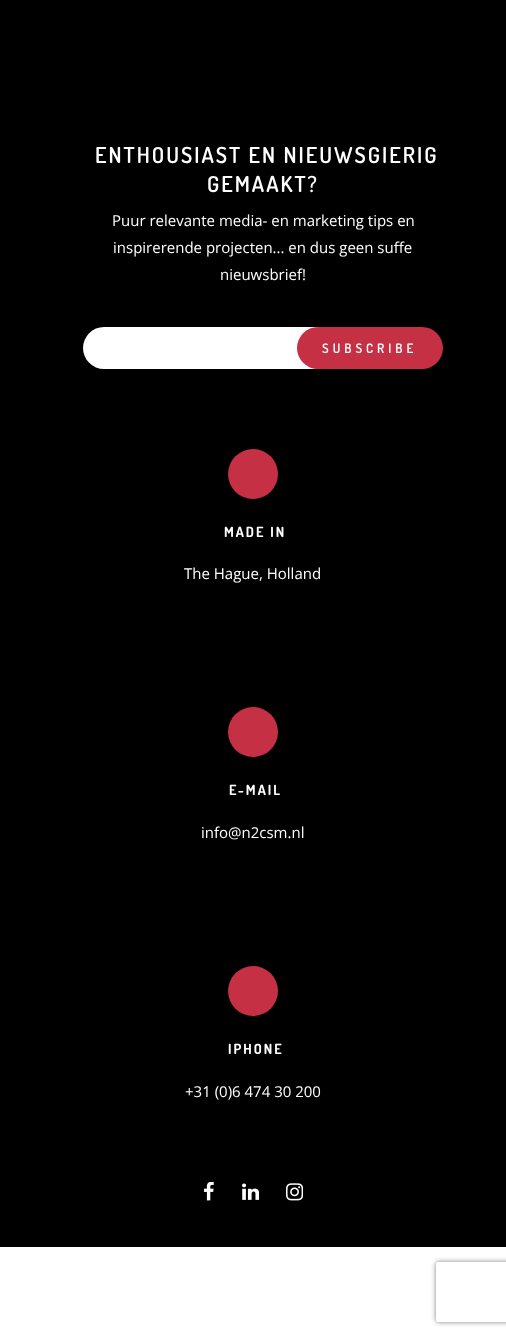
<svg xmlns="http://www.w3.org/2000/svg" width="506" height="1336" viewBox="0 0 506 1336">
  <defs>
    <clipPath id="clip1"><path d="M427 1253H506V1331H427ZM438 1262H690C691 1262 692 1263 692 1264V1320C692 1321 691 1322 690 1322H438C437 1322 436 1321 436 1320V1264C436 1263 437 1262 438 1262Z" clip-rule="evenodd"/></clipPath>
  </defs>
  <rect width="100%" height="100%" fill="#fff"/>
  <path d="M0 0h506v1247H0z" fill="#000"/>
  <rect x="83" y="327" width="342" height="42" rx="21" fill="#fff"/>
  <rect x="297" y="327" width="146" height="42" rx="21" fill="#c63045"/>
  <circle cx="253" cy="474" r="25" fill="#c63045"/>
  <circle cx="253" cy="732" r="25" fill="#c63045"/>
  <circle cx="253" cy="991" r="25" fill="#c63045"/>
  <image x="204" y="1182" width="10" height="19" href="img/1.png"/>
  <image x="242" y="1183" width="17" height="17" href="img/2.png"/>
  <image x="286" y="1183" width="17" height="18" href="img/3.png"/>
  <g clip-path="url(#clip1)">
    <rect x="436" y="1262" width="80" height="60" rx="2" fill="#808080" filter="blur(2.5px)"/>
  </g>
  <g font-family="Dosis" font-size="22" font-weight="600" letter-spacing="2" fill="#fff">
    <text x="95" y="163">ENTHOUSIAST EN NIEUWSGIERIG</text>
    <text x="207" y="192">GEMAAKT?</text>
  </g>
  <g font-family="Open Sans" font-size="15" fill="#fff">
    <text x="112" y="226">Puur relevante media- en marketing tips en</text>
    <text x="113" y="253">inspirerende projecten... en dus geen suffe</text>
    <text x="220" y="280">nieuwsbrief!</text>
  </g>
  <text x="322" y="353" font-family="Dosis" font-size="13" font-weight="600" letter-spacing="4" fill="#fff">SUBSCRIBE</text>
  <text x="224" y="537" font-family="Dosis" font-size="14" font-weight="bold" letter-spacing="2" fill="#fff">MADE IN</text>
  <text x="184" y="579" font-family="Open Sans" font-size="15" fill="#fff">The Hague, Holland</text>
  <text x="229" y="795" font-family="Dosis" font-size="14" font-weight="bold" letter-spacing="2" fill="#fff">E-MAIL</text>
  <text x="201" y="838" font-family="Open Sans" font-size="15" fill="#fff">info@n2csm.nl</text>
  <text x="228" y="1054" font-family="Dosis" font-size="14" font-weight="bold" letter-spacing="2" fill="#fff">IPHONE</text>
  <text x="185" y="1097" font-family="Open Sans" font-size="15" fill="#fff">+31 (0)6 474 30 200</text>
</svg>
